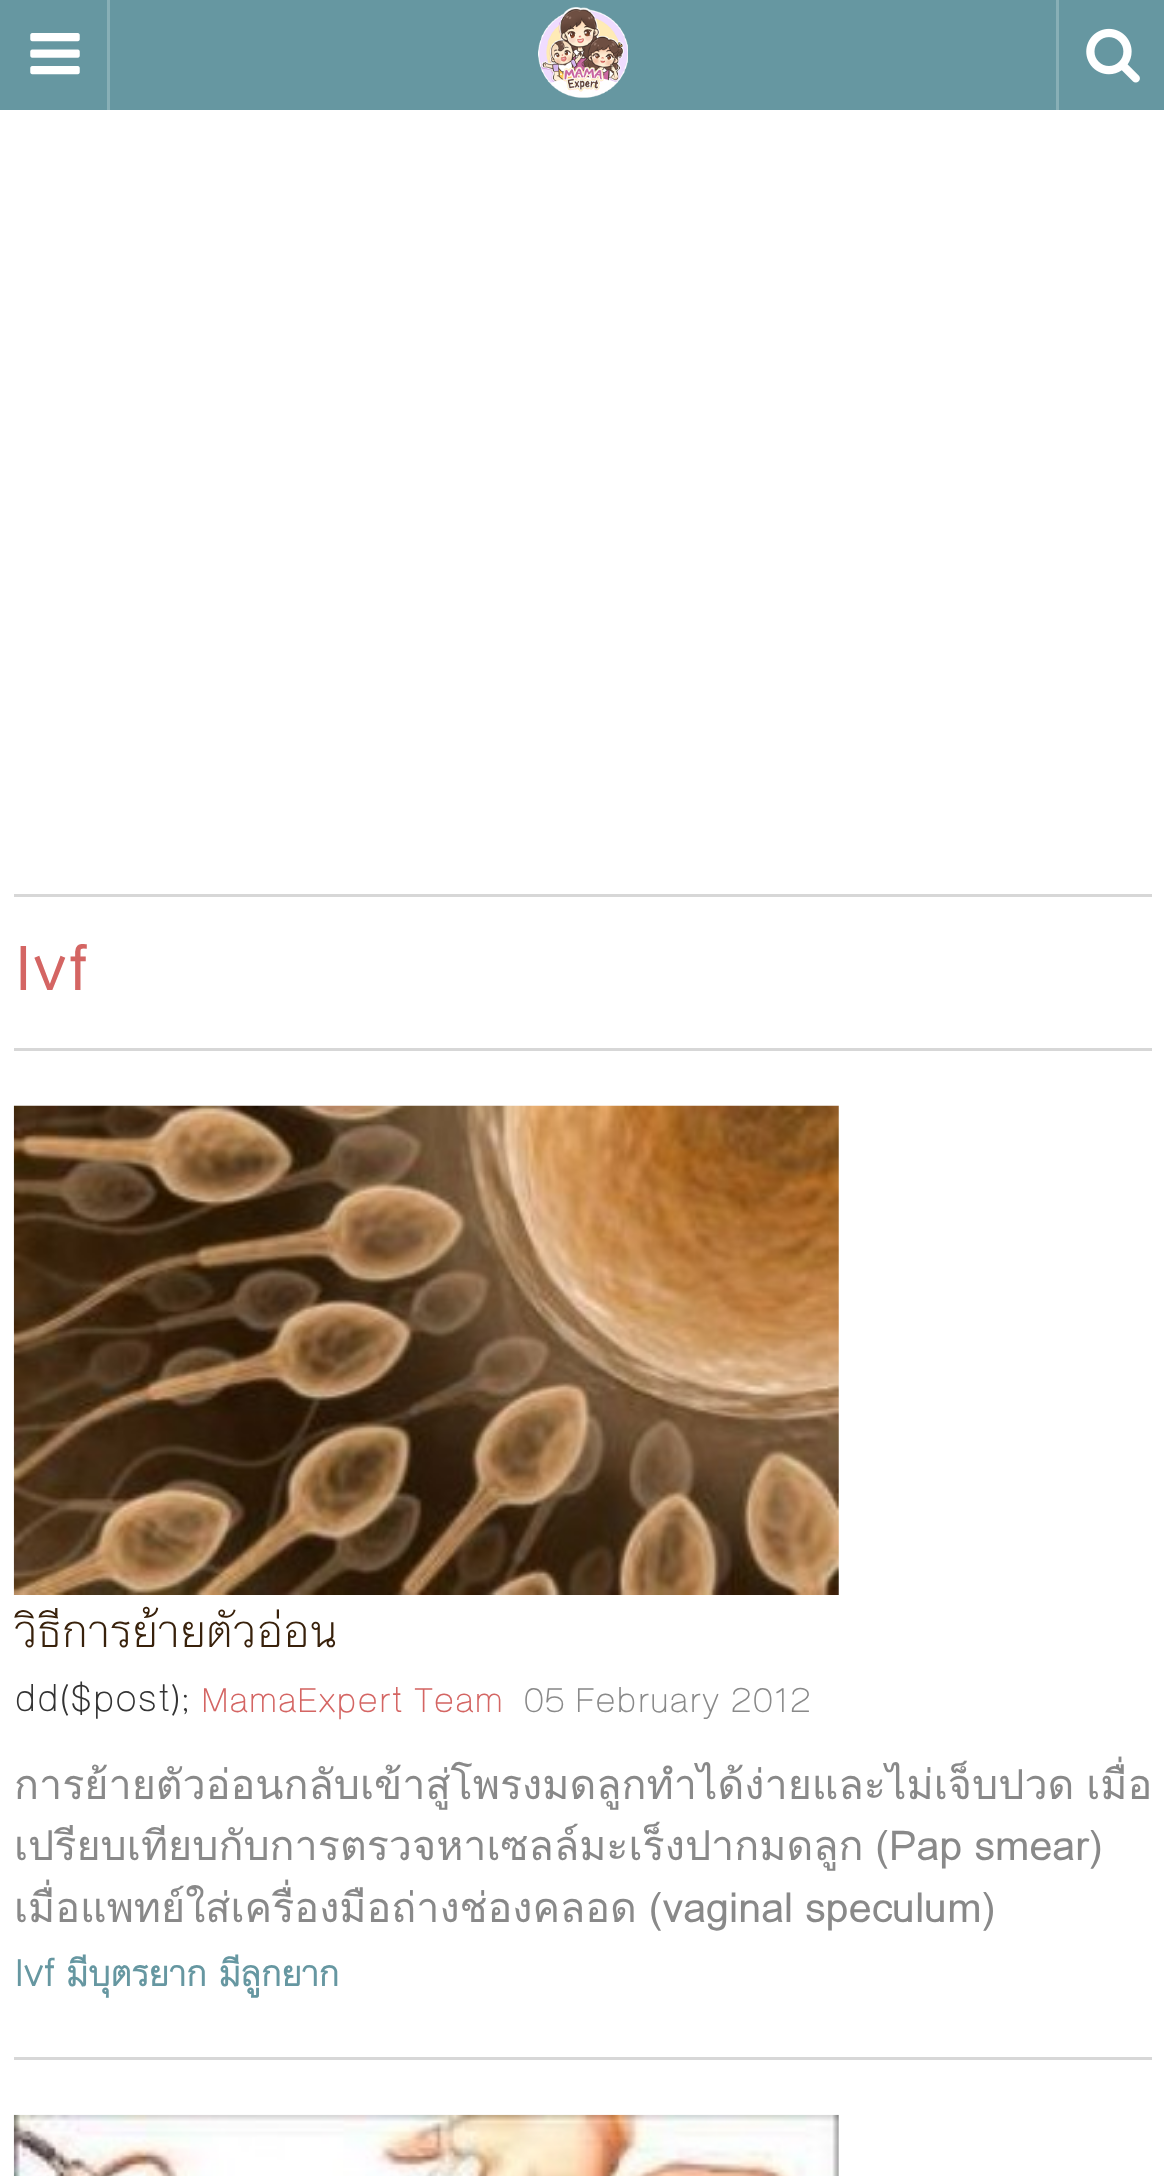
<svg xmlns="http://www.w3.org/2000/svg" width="1164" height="2176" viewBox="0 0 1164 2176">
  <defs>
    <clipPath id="clip1"><path d="M14 894h1138v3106H14z"/></clipPath>
    <clipPath id="clip2"><path d="M14 1755h1138v178H14z"/></clipPath>
  </defs>
  <rect width="100%" height="100%" fill="#fff"/>
  <path d="M0 0h1164v110H0z" fill="#6697a1"/>
  <path d="M107 0h3v110H107z" fill="#88afb6"/>
  <image x="30" y="33" width="50" height="42" href="img/1.png"/>
  <image x="538" y="7" width="90" height="91" href="img/2.png"/>
  <path d="M1056 0h3v110H1056z" fill="#88afb6"/>
  <image x="1086" y="28" width="54" height="55" href="img/3.png"/>
  <path d="M14 894h1138v3H14z" fill="#d7d7d7"/>
  <path d="M14 1048h1138v3H14z" fill="#d7d7d7"/>
  <path d="M14 2057h1138v3H14z" fill="#d7d7d7"/>
  <image x="13" y="1105" width="826" height="490" href="img/4.png"/>
  <image x="13" y="2114" width="826" height="62" href="img/5.png"/>
  <text x="14" y="990" font-family="'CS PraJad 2'" font-size="66" font-weight="bold" fill="#d46563">Ivf</text>
  <g clip-path="url(#clip1)">
    <text x="14" y="1647" font-family="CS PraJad" font-size="49.5" fill="#38210b">วิธีการย้ายตัวอ่อน</text>
  </g>
  <text x="14" y="1711" font-family="CS PraJad" font-size="38.5" fill="#333">dd($post);</text>
  <text x="201" y="1712" font-family="CS PraJad" font-size="35.75" fill="#d46563">MamaExpert Team</text>
  <text x="523" y="1712" font-family="CS PraJad" font-size="35.75" fill="#898989">05 February 2012</text>
  <g font-family="Loma" font-size="41.25" fill="#898989">
    <text x="14" y="1799" word-spacing="-2">การย้ายตัวอ่อนกลับเข้าสู่โพรงมดลูกทำได้ง่ายและไม่เจ็บปวด เมื่อ</text>
    <text x="14" y="1860" word-spacing="-2">เปรียบเทียบกับการตรวจหาเซลล์มะเร็งปากมดลูก (Pap smear)</text>
  </g>
  <g clip-path="url(#clip2)">
    <text x="14" y="1922" word-spacing="-2" font-family="Loma" font-size="41.25" fill="#898989">เมื่อแพทย์ใส่เครื่องมือถ่างช่องคลอด (vaginal speculum)</text>
  </g>
  <text x="14" y="1986" font-family="CS PraJad" font-size="38.5" font-weight="bold" fill="#6697a1">Ivf มีบุตรยาก มีลูกยาก</text>
</svg>
